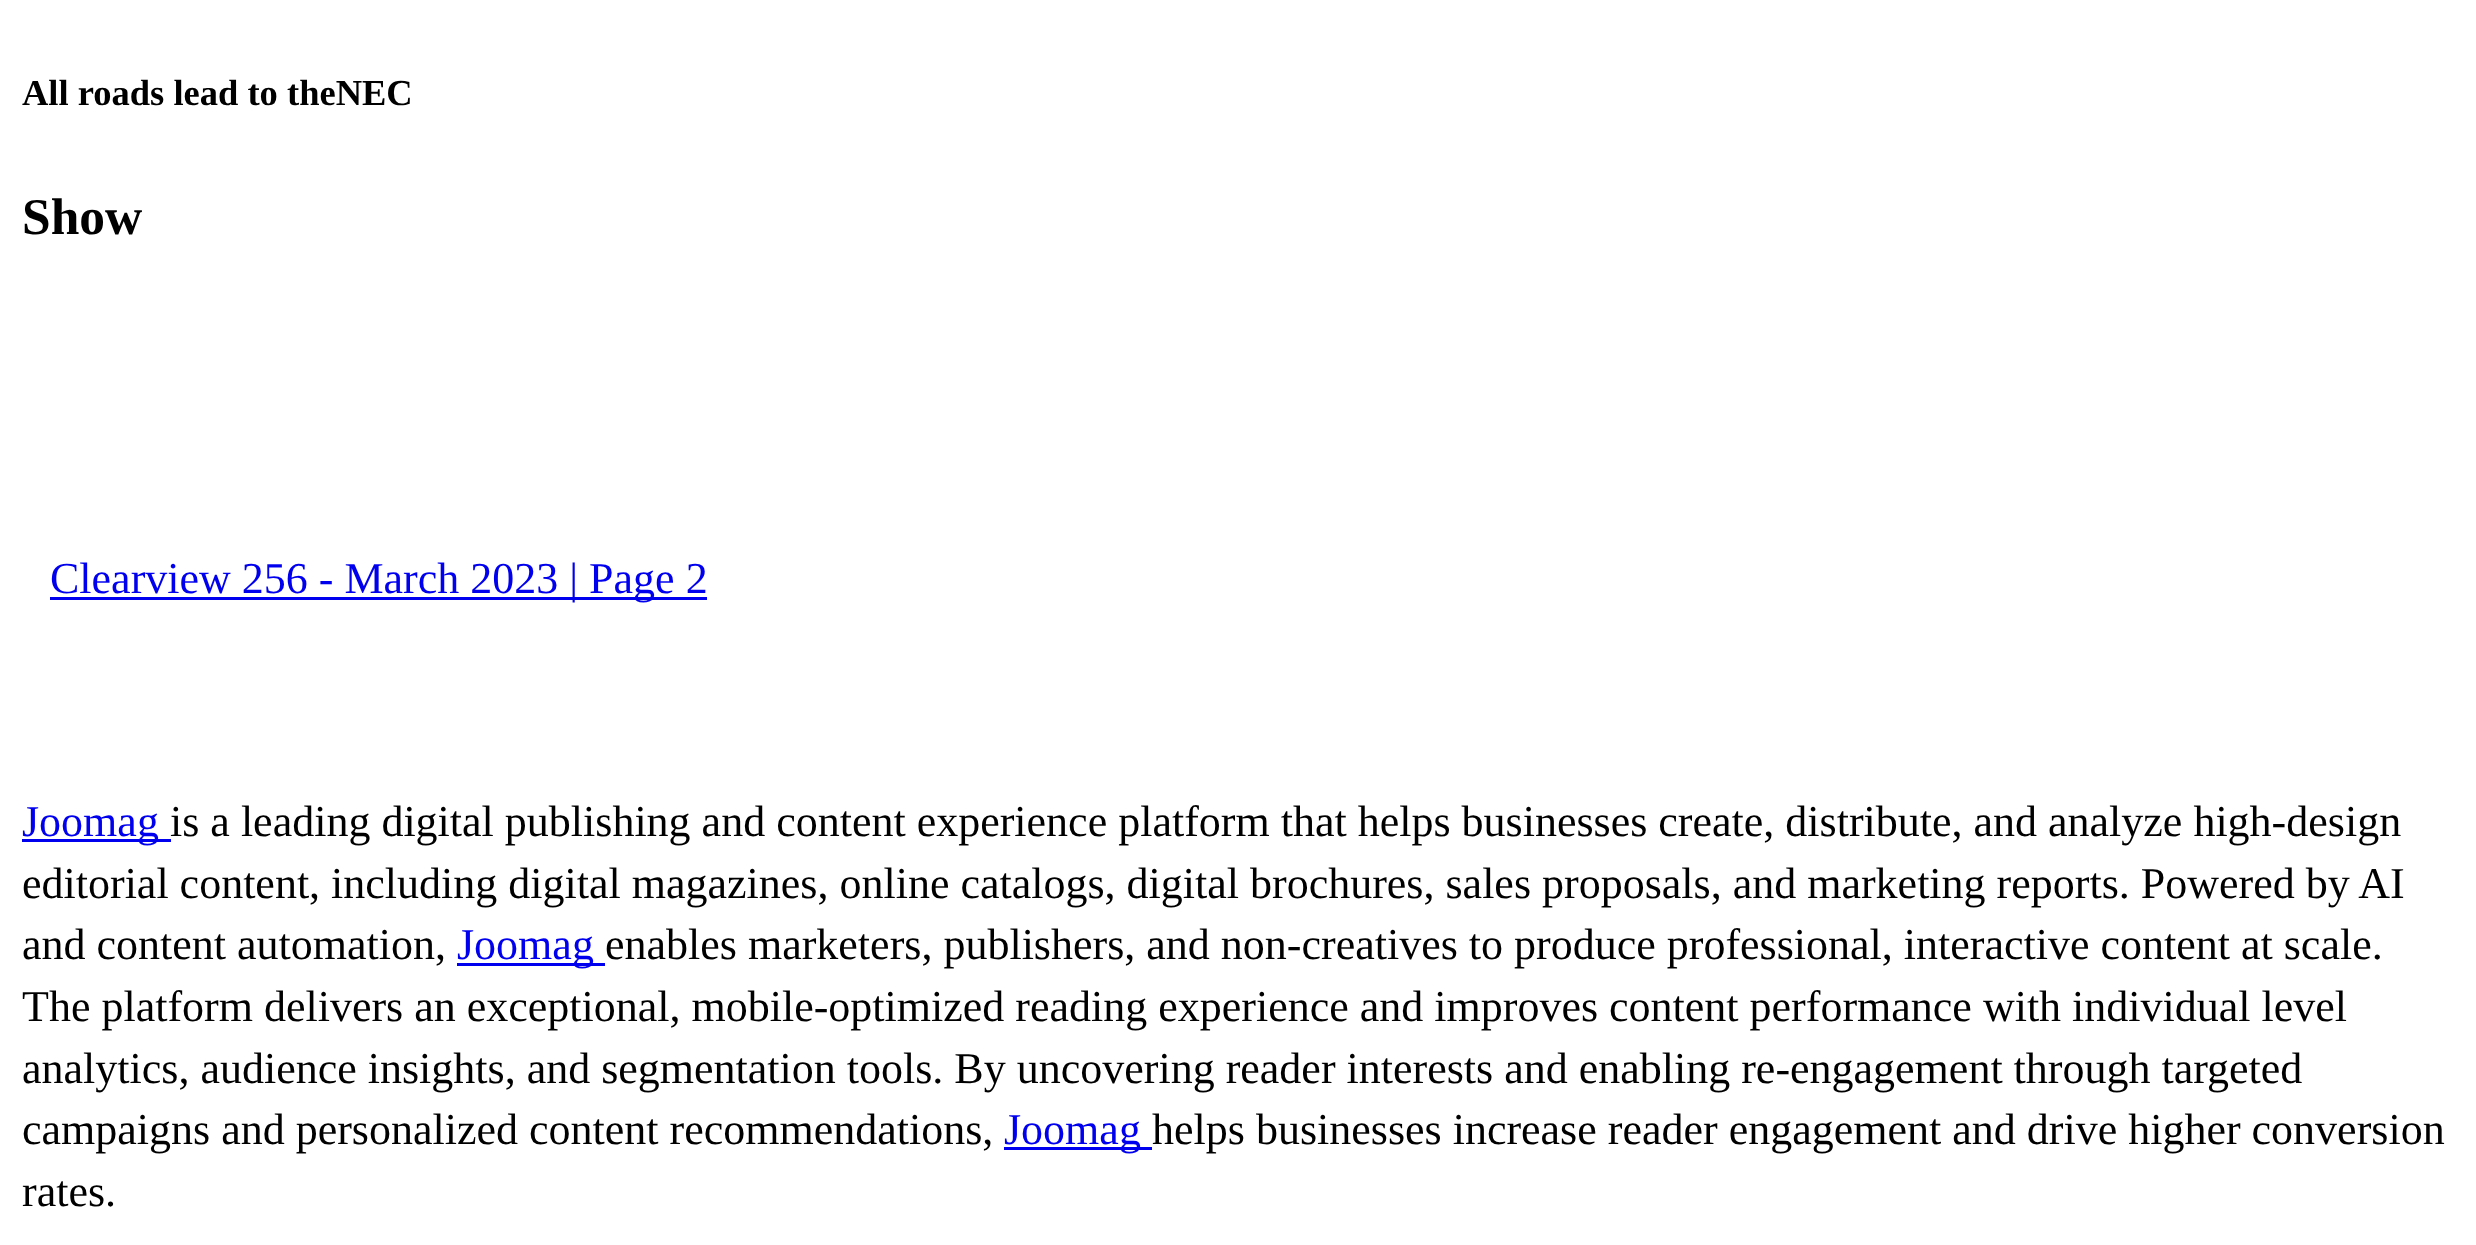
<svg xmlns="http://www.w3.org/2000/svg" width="2476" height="1245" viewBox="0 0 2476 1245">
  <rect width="100%" height="100%" fill="#fff"/>
  <path d="M50 597h657v3H50z" fill="#00e"/>
  <path d="M22 839h149v3H22z" fill="#00e"/>
  <path d="M457 963h148v3H457z" fill="#00e"/>
  <path d="M1004 1147h148v3H1004z" fill="#00e"/>
  <text x="22" y="105" font-family="Liberation Serif" font-size="36.5" font-weight="bold" fill="#000">All roads lead to theNEC</text>
  <text x="22" y="234" font-family="Liberation Serif" font-size="51.5" font-weight="bold" fill="#000">Show</text>
  <g font-family="Liberation Serif" font-size="44" fill="#00e">
    <text x="50" y="593">Clearview 256 - March 2023 | Page 2</text>
    <text x="22" y="836">Joomag</text>
  </g>
  <g font-family="Liberation Serif" font-size="44" fill="#000">
    <text x="170" y="836">is a leading digital publishing and content experience platform that helps businesses create, distribute, and analyze high-design</text>
    <text x="22" y="898">editorial content, including digital magazines, online catalogs, digital brochures, sales proposals, and marketing reports. Powered by AI</text>
    <text x="22" y="959">and content automation,</text>
  </g>
  <text x="457" y="959" font-family="Liberation Serif" font-size="44" fill="#00e">Joomag</text>
  <g font-family="Liberation Serif" font-size="44" fill="#000">
    <text x="605" y="959">enables marketers, publishers, and non-creatives to produce professional, interactive content at scale.</text>
    <text x="22" y="1021">The platform delivers an exceptional, mobile-optimized reading experience and improves content performance with individual level</text>
    <text x="22" y="1083">analytics, audience insights, and segmentation tools. By uncovering reader interests and enabling re-engagement through targeted</text>
    <text x="22" y="1144">campaigns and personalized content recommendations,</text>
  </g>
  <text x="1004" y="1144" font-family="Liberation Serif" font-size="44" fill="#00e">Joomag</text>
  <g font-family="Liberation Serif" font-size="44" fill="#000">
    <text x="1152" y="1144">helps businesses increase reader engagement and drive higher conversion</text>
    <text x="22" y="1206">rates.</text>
  </g>
</svg>
